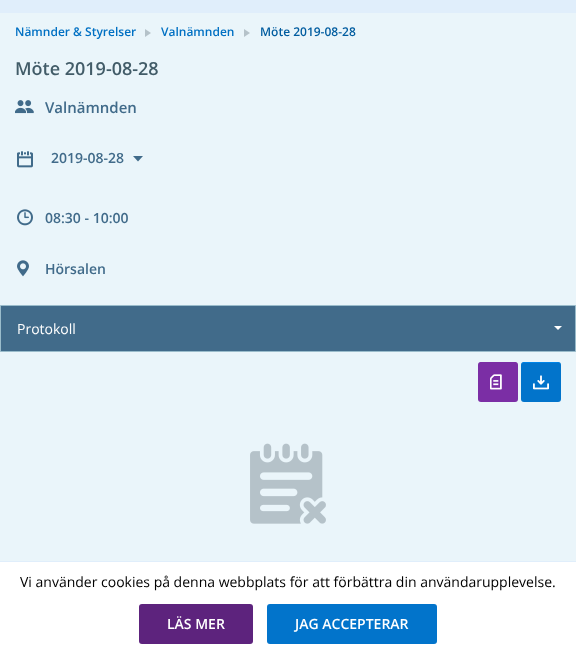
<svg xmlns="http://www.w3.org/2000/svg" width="576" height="654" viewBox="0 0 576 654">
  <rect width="100%" height="100%" fill="#eaf5fa"/>
  <path d="M0 0h576v13H0z" fill="#e0eefb"/>
  <path d="M145 37V29L151 33Z" fill="#b5c2c9"/>
  <path d="M244 37V29L250 33Z" fill="#b5c2c9"/>
  <image x="15" y="100" width="19" height="14" href="img/1.png"/>
  <image x="17" y="151" width="16" height="17" href="img/2.png"/>
  <path d="M143 156L138 161.5L133 156Z" fill="#416b8a"/>
  <image x="17" y="209" width="16" height="17" href="img/3.png"/>
  <image x="17" y="260" width="12" height="17" href="img/4.png"/>
  <path d="M0.5 305.5h575v46H0.5z" fill="#416b8a" stroke="#9abccb"/>
  <path d="M554 326H562L558 330Z" fill="#fff"/>
  <rect x="478" y="362" width="40" height="40" rx="3" fill="#7b2ea5"/>
  <path d="M481 363H515C517 363 518 364 518 366C518 361 513 362 509 362H487C483 362 478 361 478 366C478 364 479 363 481 363Z" fill="#7b2ea5"/>
  <image x="490" y="374" width="12" height="16" href="img/5.png"/>
  <rect x="521" y="362" width="40" height="40" rx="3" fill="#0274cb"/>
  <path d="M524 363H558C560 363 561 364 561 366C561 361 556 362 552 362H530C526 362 521 361 521 366C521 364 522 363 524 363Z" fill="#0084e8"/>
  <image x="533" y="375" width="16" height="15" href="img/6.png"/>
  <image x="250" y="443" width="76" height="81" href="img/7.png"/>
  <path d="M0 562h576v92H0z" fill="#fff"/>
  <path d="M0 561h576v1H0z" fill="#e0eefb"/>
  <rect x="139" y="604" width="114" height="40" rx="3" fill="#5d237d"/>
  <rect x="267" y="604" width="170" height="40" rx="3" fill="#0274cb"/>
  <g font-family="Open Sans" font-size="12" font-weight="600" fill="#0070c3">
    <text x="15" y="36">Nämnder &amp; Styrelser</text>
    <text x="161" y="36">Valnämnden</text>
  </g>
  <text x="260" y="36" font-family="Open Sans" font-size="12" font-weight="600" fill="#005c9f">Möte 2019-08-28</text>
  <text x="15" y="75" font-family="Open Sans" font-size="18" font-weight="600" fill="#425c68">Möte 2019-08-28</text>
  <text x="45" y="113" font-family="Open Sans" font-size="15" font-weight="600" fill="#416b8a">Valnämnden</text>
  <g font-family="Open Sans" font-size="14" font-weight="600" fill="#416b8a">
    <text x="51" y="163">2019-08-28</text>
    <text x="45" y="223">08:30 - 10:00</text>
    <text x="45" y="274">Hörsalen</text>
  </g>
  <text x="17" y="334" font-family="Open Sans" font-size="14" fill="#fff">Protokoll</text>
  <text x="20" y="587" font-family="Open Sans" font-size="14" fill="#000">Vi använder cookies på denna webbplats för att förbättra din användarupplevelse.</text>
  <g font-family="Open Sans" font-size="14" font-weight="600" fill="#fff">
    <text x="167" y="629">LÄS MER</text>
    <text x="295" y="629">JAG ACCEPTERAR</text>
  </g>
</svg>
